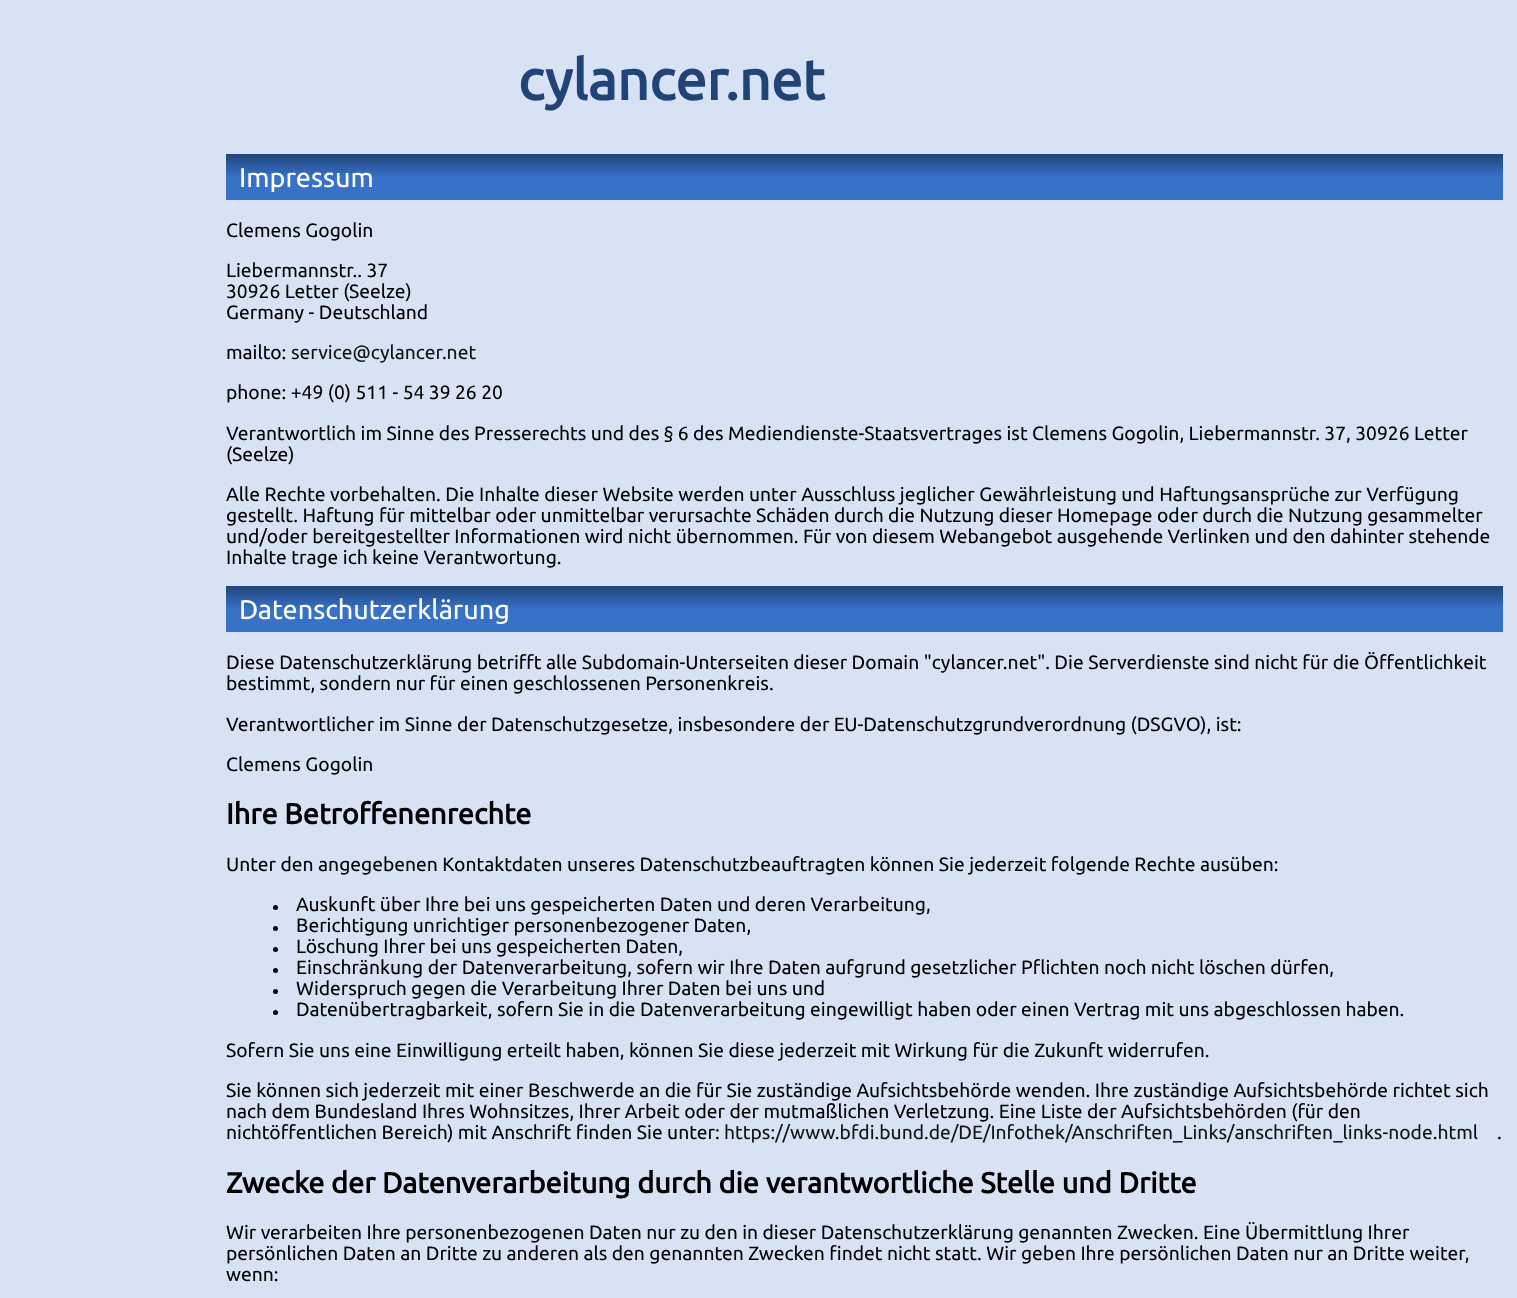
<svg xmlns="http://www.w3.org/2000/svg" width="1517" height="1298" viewBox="0 0 1517 1298">
  <defs>
    <linearGradient id="g1" gradientUnits="userSpaceOnUse" x1="865" y1="154" x2="865" y2="200"><stop offset="0" stop-color="#214478"/><stop offset="0.5" stop-color="#3771c8"/><stop offset="1" stop-color="#3771c8"/></linearGradient>
    <linearGradient id="g2" gradientUnits="userSpaceOnUse" x1="865" y1="586" x2="865" y2="632"><stop offset="0" stop-color="#214478"/><stop offset="0.5" stop-color="#3771c8"/><stop offset="1" stop-color="#3771c8"/></linearGradient>
  </defs>
  <rect width="100%" height="100%" fill="#d7e3f4"/>
  <path d="M226 154h1277v46H226z" fill="url(#g1)"/>
  <path d="M226 586h1277v46H226z" fill="url(#g2)"/>
  <circle cx="275.5" cy="907.5" r="2.5" fill="#000"/>
  <circle cx="275.5" cy="928.5" r="2.5" fill="#000"/>
  <circle cx="275.5" cy="949.5" r="2.5" fill="#000"/>
  <circle cx="275.5" cy="970.5" r="2.5" fill="#000"/>
  <circle cx="275.5" cy="991.5" r="2.5" fill="#000"/>
  <circle cx="275.5" cy="1012.5" r="2.5" fill="#000"/>
  <text x="518" y="100" font-family="Ubuntu" font-size="56" font-weight="bold" fill="#214478">cylancer.net</text>
  <text x="239" y="187" font-family="Ubuntu" font-size="27" fill="#fff">Impressum</text>
  <g font-family="Ubuntu" font-size="19.25" fill="#000">
    <text x="226" y="237">Clemens Gogolin</text>
    <text x="226" y="277">Liebermannstr.. 37</text>
    <text x="226" y="298">30926 Letter (Seelze)</text>
    <text x="226" y="319">Germany - Deutschland</text>
    <text x="226" y="359">mailto:</text>
  </g>
  <text x="291" y="359" font-family="Ubuntu" font-size="19.25" fill="#111">service@cylancer.net</text>
  <g font-family="Ubuntu" font-size="19.25" fill="#000">
    <text x="226" y="399">phone: +49 (0) 511 - 54 39 26 20</text>
    <text x="226" y="440">Verantwortlich im Sinne des Presserechts und des § 6 des Mediendienste-Staatsvertrages ist Clemens Gogolin, Liebermannstr. 37, 30926 Letter</text>
    <text x="226" y="461">(Seelze)</text>
    <text x="226" y="501">Alle Rechte vorbehalten. Die Inhalte dieser Website werden unter Ausschluss jeglicher Gewährleistung und Haftungsansprüche zur Verfügung</text>
    <text x="226" y="522">gestellt. Haftung für mittelbar oder unmittelbar verursachte Schäden durch die Nutzung dieser Homepage oder durch die Nutzung gesammelter</text>
    <text x="226" y="543">und/oder bereitgestellter Informationen wird nicht übernommen. Für von diesem Webangebot ausgehende Verlinken und den dahinter stehende</text>
    <text x="226" y="564">Inhalte trage ich keine Verantwortung.</text>
  </g>
  <text x="239" y="619" font-family="Ubuntu" font-size="27" fill="#fff">Datenschutzerklärung</text>
  <g font-family="Ubuntu" font-size="19.25" fill="#000">
    <text x="226" y="669">Diese Datenschutzerklärung betrifft alle Subdomain-Unterseiten dieser Domain "cylancer.net". Die Serverdienste sind nicht für die Öffentlichkeit</text>
    <text x="226" y="690">bestimmt, sondern nur für einen geschlossenen Personenkreis.</text>
    <text x="226" y="731">Verantwortlicher im Sinne der Datenschutzgesetze, insbesondere der EU-Datenschutzgrundverordnung (DSGVO), ist:</text>
    <text x="226" y="771">Clemens Gogolin</text>
  </g>
  <text x="226" y="824" font-family="Ubuntu" font-size="28.9" font-weight="bold" fill="#000">Ihre Betroffenenrechte</text>
  <g font-family="Ubuntu" font-size="19.25" fill="#000">
    <text x="226" y="871">Unter den angegebenen Kontaktdaten unseres Datenschutzbeauftragten können Sie jederzeit folgende Rechte ausüben:</text>
    <text x="296" y="911">Auskunft über Ihre bei uns gespeicherten Daten und deren Verarbeitung,</text>
    <text x="296" y="932">Berichtigung unrichtiger personenbezogener Daten,</text>
    <text x="296" y="953">Löschung Ihrer bei uns gespeicherten Daten,</text>
    <text x="296" y="974">Einschränkung der Datenverarbeitung, sofern wir Ihre Daten aufgrund gesetzlicher Pflichten noch nicht löschen dürfen,</text>
    <text x="296" y="995">Widerspruch gegen die Verarbeitung Ihrer Daten bei uns und</text>
    <text x="296" y="1016">Datenübertragbarkeit, sofern Sie in die Datenverarbeitung eingewilligt haben oder einen Vertrag mit uns abgeschlossen haben.</text>
    <text x="226" y="1057">Sofern Sie uns eine Einwilligung erteilt haben, können Sie diese jederzeit mit Wirkung für die Zukunft widerrufen.</text>
    <text x="226" y="1097">Sie können sich jederzeit mit einer Beschwerde an die für Sie zuständige Aufsichtsbehörde wenden. Ihre zuständige Aufsichtsbehörde richtet sich</text>
    <text x="226" y="1118">nach dem Bundesland Ihres Wohnsitzes, Ihrer Arbeit oder der mutmaßlichen Verletzung. Eine Liste der Aufsichtsbehörden (für den</text>
    <text x="226" y="1139">nichtöffentlichen Bereich) mit Anschrift finden Sie unter:</text>
  </g>
  <text x="724" y="1139" font-family="Ubuntu" font-size="19.25" fill="#111">https://www.bfdi.bund.de/DE/Infothek/Anschriften_Links/anschriften_links-node.html</text>
  <text x="1497" y="1139" font-family="Ubuntu" font-size="19.25" fill="#000">.</text>
  <text x="226" y="1193" font-family="Ubuntu" font-size="28.9" font-weight="bold" fill="#000">Zwecke der Datenverarbeitung durch die verantwortliche Stelle und Dritte</text>
  <g font-family="Ubuntu" font-size="19.25" fill="#000">
    <text x="226" y="1239">Wir verarbeiten Ihre personenbezogenen Daten nur zu den in dieser Datenschutzerklärung genannten Zwecken. Eine Übermittlung Ihrer</text>
    <text x="226" y="1260">persönlichen Daten an Dritte zu anderen als den genannten Zwecken findet nicht statt. Wir geben Ihre persönlichen Daten nur an Dritte weiter,</text>
    <text x="226" y="1281">wenn:</text>
  </g>
</svg>
